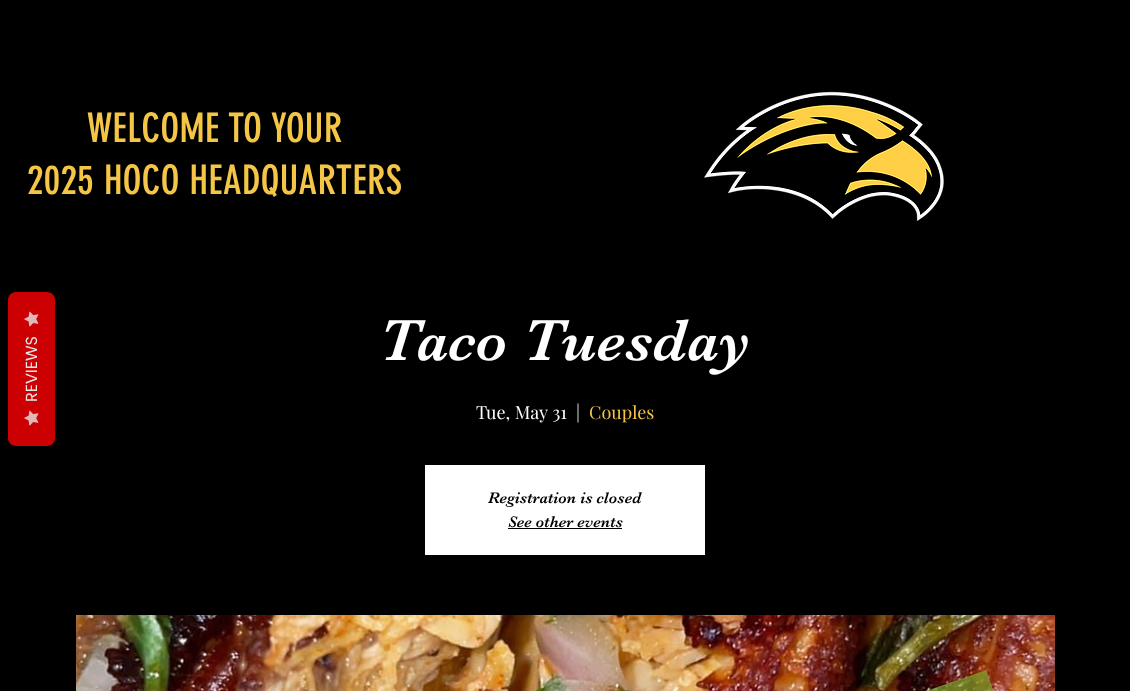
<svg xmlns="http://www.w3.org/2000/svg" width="1130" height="691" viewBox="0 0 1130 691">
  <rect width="100%" height="100%" fill="#000"/>
  <image x="704" y="91" width="240" height="130" href="img/1.png"/>
  <path d="M425 465h280v90H425z" fill="#fff"/>
  <path d="M508 528h114v1H508z" fill="#000"/>
  <image x="76" y="615" width="979" height="76" href="img/2.png"/>
  <path d="M8 438V300C8 295 12 292 16 292H47C51 292 55 295 55 300V438C55 443 51 446 47 446H16C12 446 8 443 8 438Z" fill="#cc0003"/>
  <image x="24" y="311" width="15" height="16" href="img/3.png"/>
  <image x="24" y="410" width="15" height="16" href="img/3.png"/>
  <g font-family="'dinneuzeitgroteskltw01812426'" font-size="40" letter-spacing="0.4" fill="#f5c645">
    <text x="87" y="142">WELCOME TO YOUR</text>
    <text x="27" y="194">2025 HOCO HEADQUARTERS</text>
  </g>
  <text x="379" y="360" font-family="'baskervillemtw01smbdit'" font-size="60" fill="#fff">Taco Tuesday</text>
  <g font-family="Playfair Display" font-size="18" fill="#fff">
    <text x="476" y="419">Tue, May 31</text>
    <text x="576" y="419">|</text>
  </g>
  <text x="589" y="419" font-family="Playfair Display" font-size="18" fill="#f5c645">Couples</text>
  <g font-family="'baskervillemtw01smbdit'" font-size="16" fill="#000">
    <text x="488" y="503">Registration is closed</text>
    <text x="508" y="527">See other events</text>
  </g>
  <text x="37" y="402" transform="rotate(-90 37 402)" font-family="Poppins" font-size="16" fill="#e6e6e6">REVIEWS</text>
</svg>
